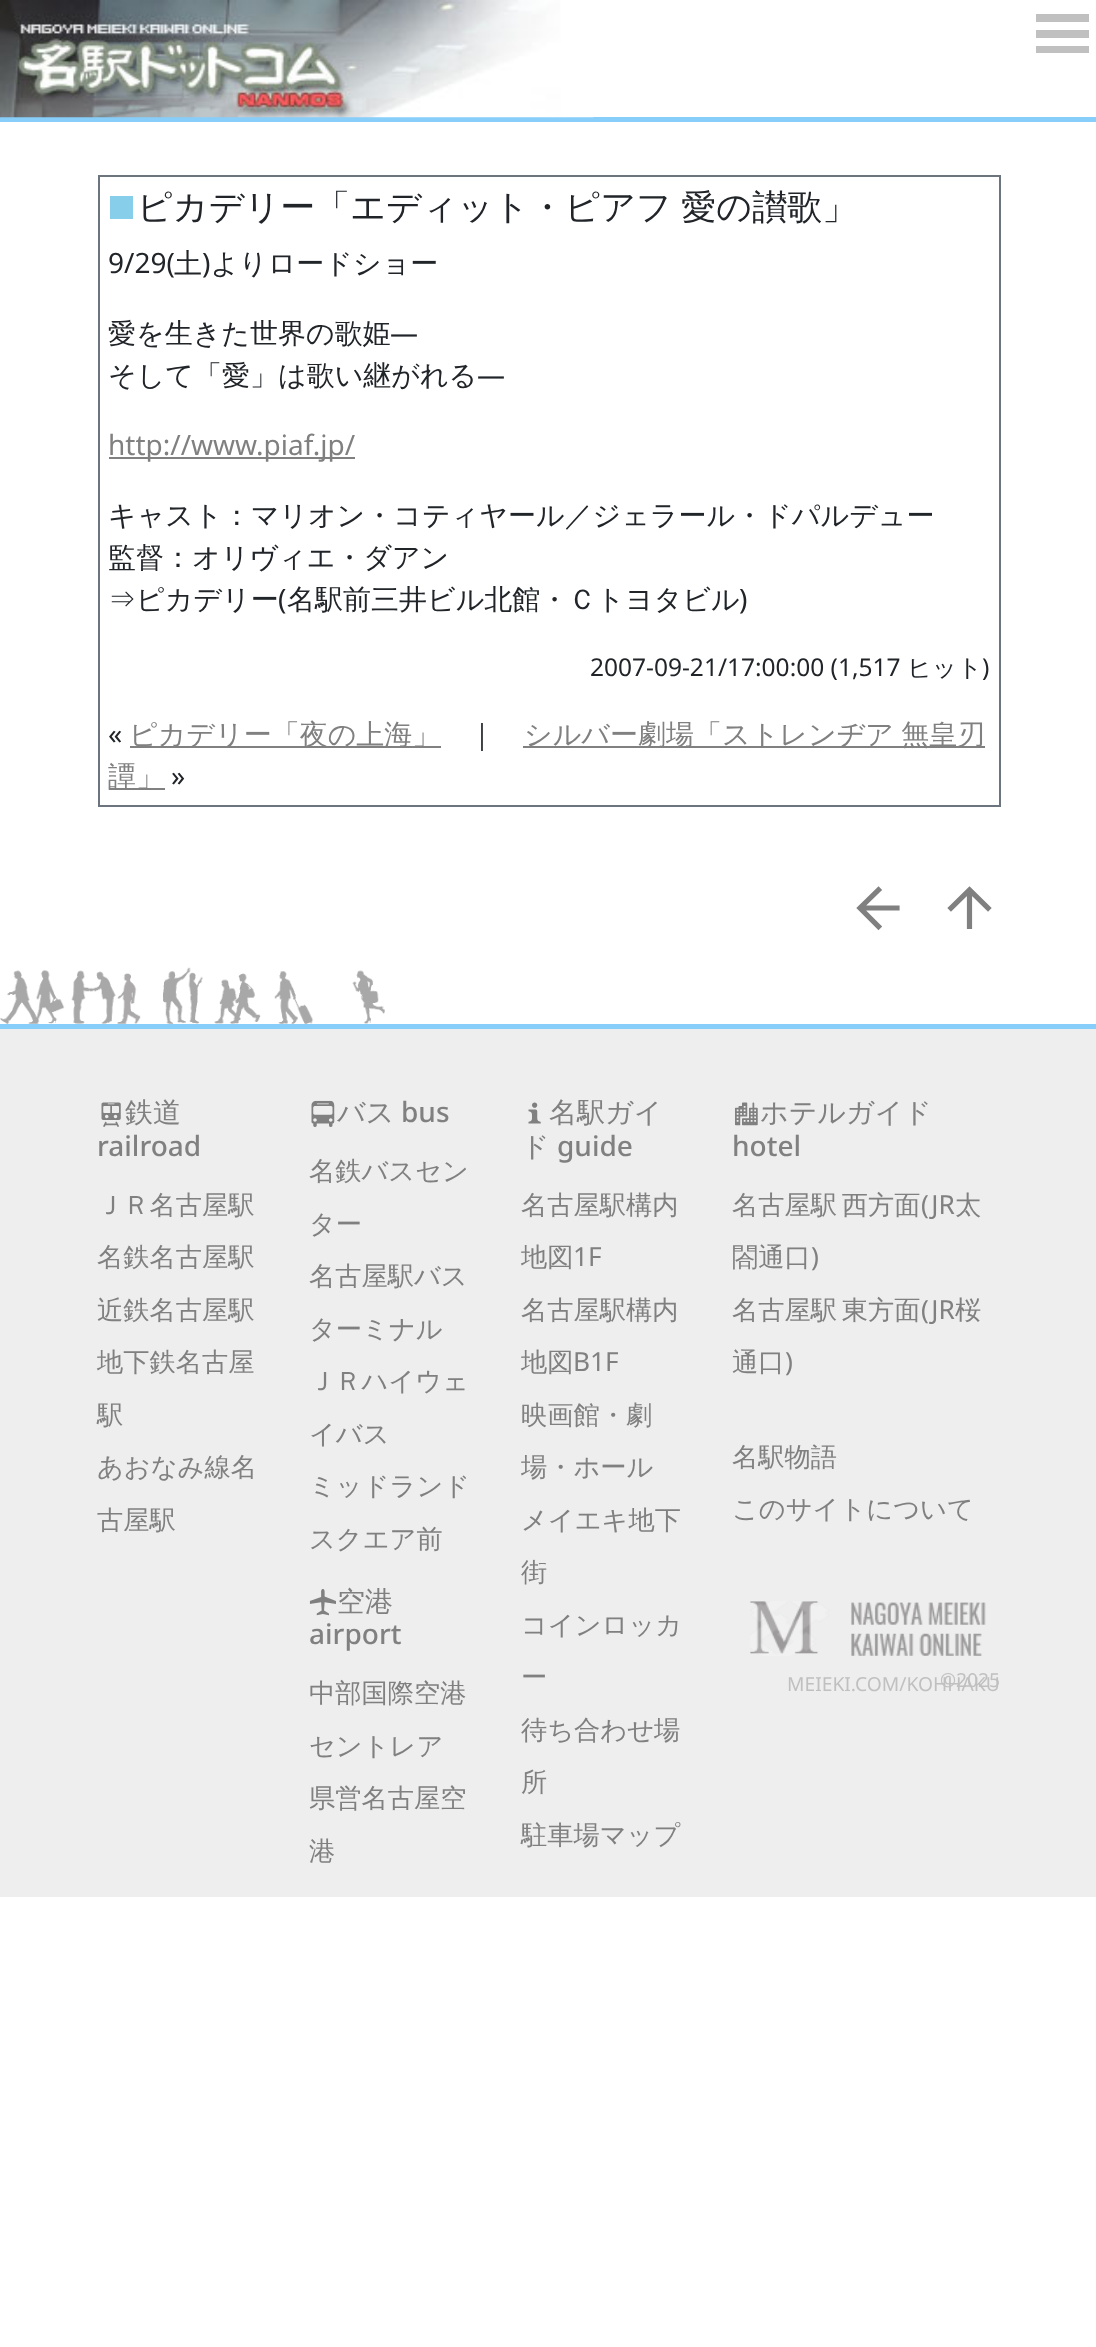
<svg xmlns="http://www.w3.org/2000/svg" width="1096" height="2347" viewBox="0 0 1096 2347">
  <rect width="100%" height="100%" fill="#fff"/>
  <path d="M0 117h1096v5H0z" fill="#87cefa"/>
  <image x="0" y="0" width="594" height="118" href="img/1.png"/>
  <path d="M1036 14h53v8H1036z" fill="#c0c0c0"/>
  <path d="M1036 30h53v8H1036z" fill="#c0c0c0"/>
  <path d="M1036 46h53v7H1036z" fill="#c0c0c0"/>
  <path d="M99 176h901v630H99z" fill="none" stroke="#6c757d" stroke-width="2"/>
  <path d="M110 196h23v23H110z" fill="#87ceeb"/>
  <path d="M109 457h246v2H109z" fill="#808080"/>
  <path d="M130 746h311v2H130z" fill="#808080"/>
  <path d="M523 746h462v2H523z" fill="#808080"/>
  <path d="M109 788h56v2H109z" fill="#808080"/>
  <path d="M897 908H863M878.5 890L860 908L878.5 926.5" fill="none" stroke="#808080" stroke-width="5.2" stroke-linecap="square"/>
  <path d="M969.5 926.5V892.5M951 908L969.5 890L988 908" fill="none" stroke="#808080" stroke-width="5.2" stroke-linecap="square"/>
  <image x="0" y="967" width="385" height="57" href="img/2.png"/>
  <path d="M0 1024h1096v5H0z" fill="#87cefa"/>
  <path d="M0 1029h1096v868H0z" fill="#eee"/>
  <image x="101" y="1102" width="20" height="25" href="img/3.png"/>
  <image x="311" y="1100" width="24" height="27" href="img/4.png"/>
  <image x="309" y="1589" width="27" height="27" href="img/5.png"/>
  <image x="528" y="1102" width="13" height="22" href="img/6.png"/>
  <image x="735" y="1102" width="23" height="24" href="img/7.png"/>
  <image x="750" y="1601" width="236" height="55" href="img/8.png"/>
  <text x="137" y="219" word-spacing="-1" font-family="WenQuanYi Zen Hei" font-size="35" font-weight="500" fill="#212529">ピカデリー「エディット・ピアフ 愛の讃歌」</text>
  <text x="108" y="273" font-family="Noto Sans" font-size="28" fill="#212529">9/29(</text>
  <text x="174" y="273" font-family="WenQuanYi Zen Hei" font-size="28" font-weight="500" fill="#212529">土 よりロードショー</text>
  <text x="202" y="273" font-family="Noto Sans" font-size="28" fill="#212529">)</text>
  <text x="108" y="343" font-family="WenQuanYi Zen Hei" font-size="28" font-weight="500" fill="#212529">愛を生きた世界の歌姫</text>
  <text x="390" y="343" font-family="Noto Sans" font-size="28" fill="#212529">―</text>
  <text x="108" y="385" font-family="WenQuanYi Zen Hei" font-size="28" font-weight="500" fill="#212529">そして「愛」は歌い継がれる</text>
  <text x="477" y="385" font-family="Noto Sans" font-size="28" fill="#212529">―</text>
  <text x="108" y="455" font-family="Noto Sans" font-size="28" fill="#808080">http://www.piaf.jp/</text>
  <g font-family="WenQuanYi Zen Hei" font-size="28" font-weight="500" fill="#212529">
    <text x="108" y="525">キャスト：マリオン・コティヤール／ジェラール・ドパルデュー</text>
    <text x="108" y="567">監督：オリヴィエ・ダアン</text>
    <text x="108" y="609">⇒ピカデリー 名駅前三井ビル北館・Ｃトヨタビル</text>
  </g>
  <g font-family="Noto Sans" font-size="28" fill="#212529">
    <text x="278" y="609">(</text>
    <text x="739" y="609">)</text>
  </g>
  <text x="590" y="676" font-family="Noto Sans" font-size="24.5" fill="#212529">2007-09-21/17:00:00 (1,517</text>
  <text x="907" y="676" font-family="WenQuanYi Zen Hei" font-size="24.5" font-weight="500" fill="#212529">ヒット</text>
  <text x="982" y="676" font-family="Noto Sans" font-size="24.5" fill="#212529">)</text>
  <text x="108" y="744" font-family="Noto Sans" font-size="28" fill="#212529">«</text>
  <text x="129" y="744" font-family="WenQuanYi Zen Hei" font-size="28" font-weight="500" fill="#808080">ピカデリー「夜の上海」</text>
  <text x="468" y="744" font-family="WenQuanYi Zen Hei" font-size="28" font-weight="500" fill="#212529">｜</text>
  <g font-family="WenQuanYi Zen Hei" font-size="28" font-weight="500" fill="#808080">
    <text x="524" y="744" word-spacing="-1">シルバー劇場「ストレンヂア 無皇刃</text>
    <text x="108" y="786">譚」</text>
  </g>
  <text x="171" y="786" font-family="Noto Sans" font-size="28" fill="#212529">»</text>
  <text x="125" y="1122" font-family="WenQuanYi Zen Hei" font-size="28" font-weight="500" fill="#808080">鉄道</text>
  <text x="97" y="1156" font-family="Noto Sans" font-size="28" font-weight="500" fill="#808080">railroad</text>
  <g font-family="WenQuanYi Zen Hei" font-size="26.25" font-weight="500" fill="#808080">
    <text x="97" y="1214">ＪＲ名古屋駅</text>
    <text x="97" y="1266">名鉄名古屋駅</text>
    <text x="97" y="1319">近鉄名古屋駅</text>
    <text x="97" y="1371">地下鉄名古屋</text>
    <text x="97" y="1424">駅</text>
    <text x="97" y="1476">あおなみ線名</text>
    <text x="97" y="1529">古屋駅</text>
  </g>
  <text x="337" y="1122" font-family="WenQuanYi Zen Hei" font-size="28" font-weight="500" fill="#808080">バス</text>
  <text x="401" y="1122" font-family="Noto Sans" font-size="28" font-weight="500" fill="#808080">bus</text>
  <g font-family="WenQuanYi Zen Hei" font-size="26.25" font-weight="500" fill="#808080">
    <text x="309" y="1180">名鉄バスセン</text>
    <text x="309" y="1233">ター</text>
    <text x="309" y="1285">名古屋駅バス</text>
    <text x="309" y="1338">ターミナル</text>
    <text x="309" y="1390">ＪＲハイウェ</text>
    <text x="309" y="1443">イバス</text>
    <text x="309" y="1495">ミッドランド</text>
    <text x="309" y="1548">スクエア前</text>
  </g>
  <text x="337" y="1611" font-family="WenQuanYi Zen Hei" font-size="28" font-weight="500" fill="#808080">空港</text>
  <text x="309" y="1644" font-family="Noto Sans" font-size="28" font-weight="500" fill="#808080">airport</text>
  <g font-family="WenQuanYi Zen Hei" font-size="26.25" font-weight="500" fill="#808080">
    <text x="309" y="1702">中部国際空港</text>
    <text x="309" y="1755">セントレア</text>
    <text x="309" y="1807">県営名古屋空</text>
    <text x="309" y="1860">港</text>
  </g>
  <g font-family="WenQuanYi Zen Hei" font-size="28" font-weight="500" fill="#808080">
    <text x="549" y="1122">名駅ガイ</text>
    <text x="521" y="1156">ド</text>
  </g>
  <text x="557" y="1156" font-family="Noto Sans" font-size="28" font-weight="500" fill="#808080">guide</text>
  <g font-family="WenQuanYi Zen Hei" font-size="26.25" font-weight="500" fill="#808080">
    <text x="521" y="1214">名古屋駅構内</text>
    <text x="521" y="1266">地図</text>
  </g>
  <text x="573" y="1266" font-family="Noto Sans" font-size="26.25" fill="#808080">1F</text>
  <g font-family="WenQuanYi Zen Hei" font-size="26.25" font-weight="500" fill="#808080">
    <text x="521" y="1319">名古屋駅構内</text>
    <text x="521" y="1371">地図</text>
  </g>
  <text x="573" y="1371" font-family="Noto Sans" font-size="26.25" fill="#808080">B1F</text>
  <g font-family="WenQuanYi Zen Hei" font-size="26.25" font-weight="500" fill="#808080">
    <text x="521" y="1424">映画館・劇</text>
    <text x="521" y="1476">場・ホール</text>
    <text x="521" y="1529">メイエキ地下</text>
    <text x="521" y="1581">街</text>
    <text x="521" y="1634">コインロッカ</text>
    <text x="521" y="1686">ー</text>
    <text x="521" y="1739">待ち合わせ場</text>
    <text x="521" y="1791">所</text>
    <text x="521" y="1844">駐車場マップ</text>
  </g>
  <text x="760" y="1122" font-family="WenQuanYi Zen Hei" font-size="28" font-weight="500" fill="#808080">ホテルガイド</text>
  <text x="732" y="1156" font-family="Noto Sans" font-size="28" font-weight="500" fill="#808080">hotel</text>
  <text x="732" y="1214" word-spacing="-3" font-family="WenQuanYi Zen Hei" font-size="26.25" font-weight="500" fill="#808080">名古屋駅 西方面</text>
  <text x="921" y="1214" font-family="Noto Sans" font-size="26.25" fill="#808080">(JR</text>
  <g font-family="WenQuanYi Zen Hei" font-size="26.25" font-weight="500" fill="#808080">
    <text x="955" y="1214">太</text>
    <text x="732" y="1266">閤通口</text>
  </g>
  <text x="811" y="1266" font-family="Noto Sans" font-size="26.25" fill="#808080">)</text>
  <text x="732" y="1319" word-spacing="-3" font-family="WenQuanYi Zen Hei" font-size="26.25" font-weight="500" fill="#808080">名古屋駅 東方面</text>
  <text x="921" y="1319" font-family="Noto Sans" font-size="26.25" fill="#808080">(JR</text>
  <g font-family="WenQuanYi Zen Hei" font-size="26.25" font-weight="500" fill="#808080">
    <text x="955" y="1319">桜</text>
    <text x="732" y="1371">通口</text>
  </g>
  <text x="785" y="1371" font-family="Noto Sans" font-size="26.25" fill="#808080">)</text>
  <g font-family="WenQuanYi Zen Hei" font-size="26.25" font-weight="500" fill="#808080">
    <text x="732" y="1466">名駅物語</text>
    <text x="732" y="1518">このサイトについて</text>
  </g>
  <g font-family="Noto Sans" font-size="19.25" fill="#c0c0c0">
    <text x="940" y="1687">©2025</text>
    <text x="787" y="1691">MEIEKI.COM/KOHHAKU</text>
  </g>
</svg>
